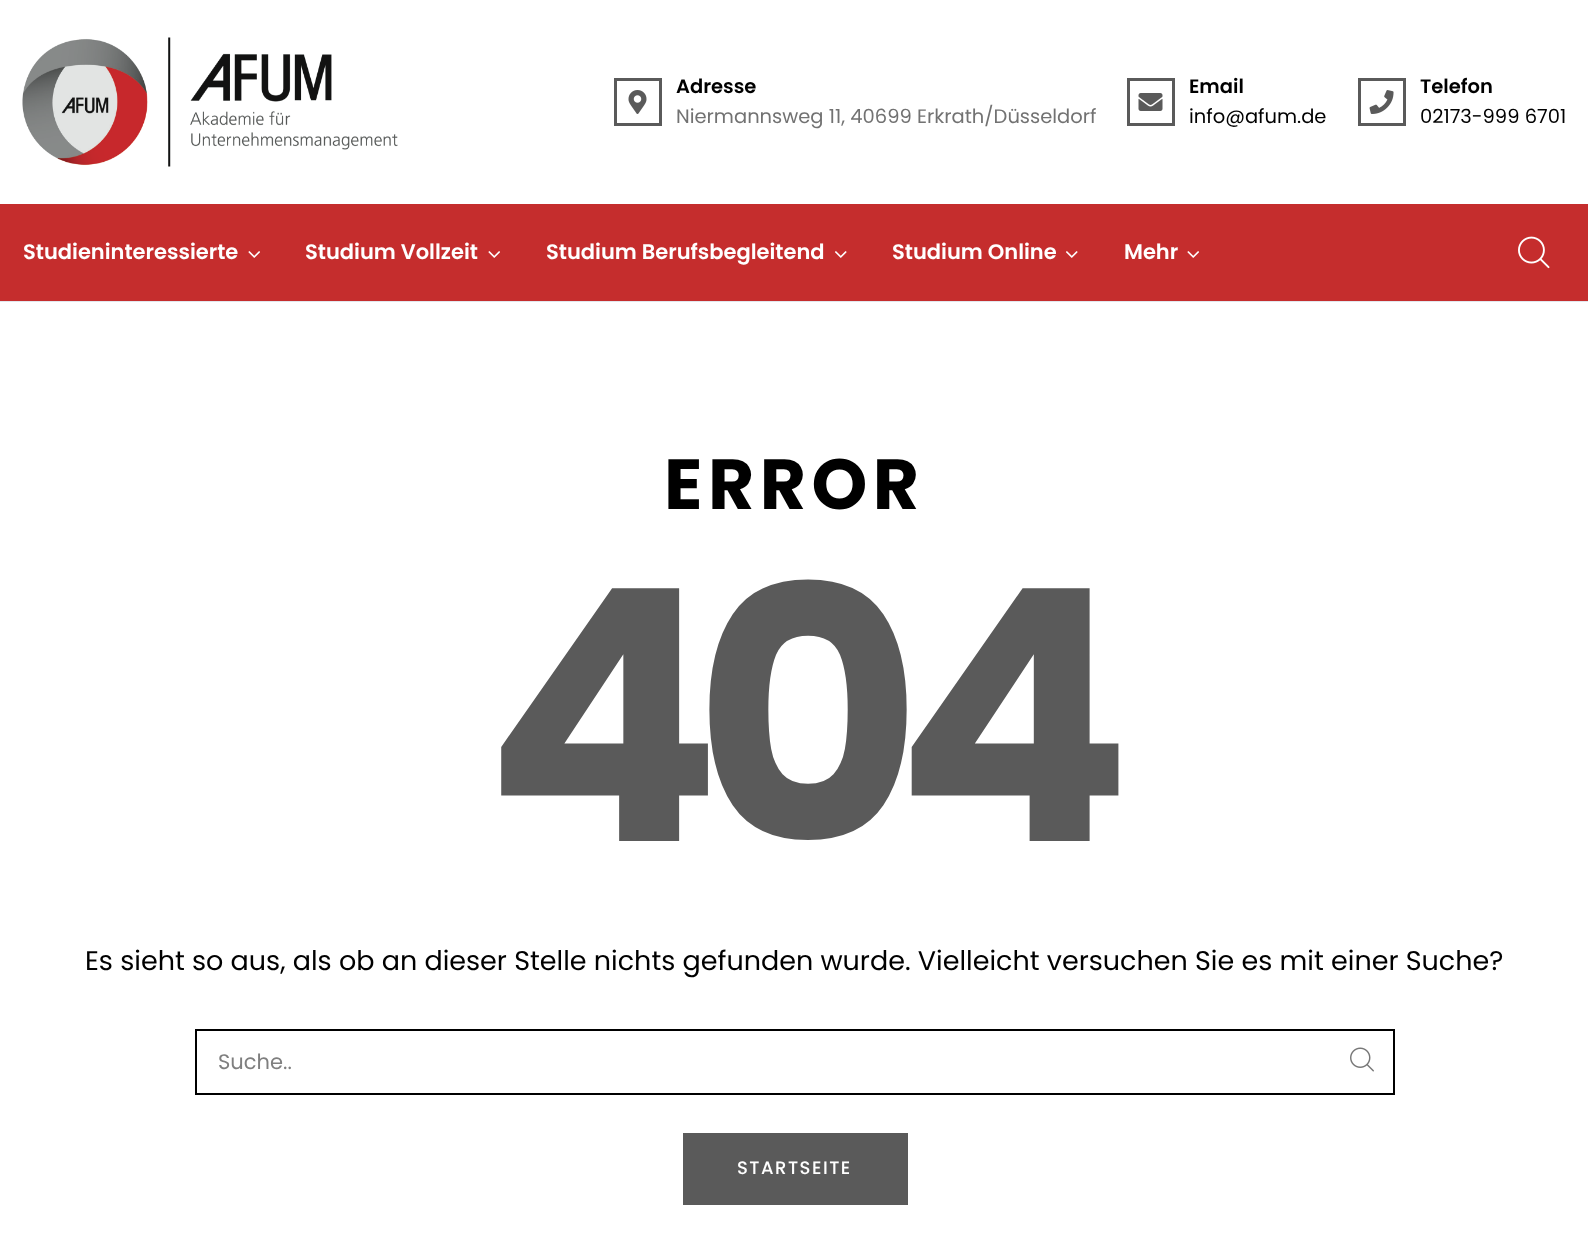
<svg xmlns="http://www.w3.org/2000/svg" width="1588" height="1260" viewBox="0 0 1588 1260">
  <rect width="100%" height="100%" fill="#fff"/>
  <image x="22" y="37" width="376" height="130" href="img/1.png"/>
  <path d="M615.5 79.5h45v45H615.5z" fill="none" stroke="#5a5a5a" stroke-width="3"/>
  <image x="628" y="90" width="19" height="24" href="img/2.png"/>
  <path d="M1128.5 79.5h45v45H1128.5z" fill="none" stroke="#5a5a5a" stroke-width="3"/>
  <image x="1138" y="93" width="25" height="18" href="img/3.png"/>
  <path d="M1359.5 79.5h45v45H1359.5z" fill="none" stroke="#5a5a5a" stroke-width="3"/>
  <image x="1369" y="90" width="25" height="24" href="img/4.png"/>
  <path d="M0 204h1588v97H0z" fill="#c52d2d"/>
  <image x="248" y="251" width="12" height="7" href="img/5.png"/>
  <image x="488" y="251" width="12" height="7" href="img/5.png"/>
  <image x="835" y="251" width="12" height="7" href="img/6.png"/>
  <image x="1066" y="251" width="12" height="7" href="img/6.png"/>
  <image x="1187" y="251" width="12" height="7" href="img/5.png"/>
  <image x="1518" y="236" width="32" height="33" href="img/7.png"/>
  <path d="M0 301h1588v1H0z" fill="#e2e7ed"/>
  <path d="M196 1030h1198v64H196z" fill="none" stroke="#000" stroke-width="2"/>
  <image x="1350" y="1047" width="24" height="25" href="img/8.png"/>
  <path d="M683 1133h225v72H683z" fill="#5a5a5a"/>
  <text x="676" y="93" font-family="Poppins" font-size="19.5" font-weight="600" fill="#000">Adresse</text>
  <text x="676" y="123" font-family="Poppins" font-size="19.5" fill="#727272">Niermannsweg 11, 40699 Erkrath/Düsseldorf</text>
  <text x="1189" y="93" font-family="Poppins" font-size="19.5" font-weight="600" fill="#000">Email</text>
  <text x="1189" y="123" font-family="Poppins" font-size="19.5" fill="#000">info@afum.de</text>
  <text x="1420" y="93" font-family="Poppins" font-size="19.5" font-weight="600" fill="#000">Telefon</text>
  <text x="1420" y="123" font-family="Poppins" font-size="19.5" fill="#000">02173-999 6701</text>
  <g font-family="Poppins" font-size="21" font-weight="600" fill="#fff">
    <text x="23" y="259">Studieninteressierte</text>
    <text x="305" y="259">Studium Vollzeit</text>
    <text x="546" y="259">Studium Berufsbegleitend</text>
    <text x="892" y="259">Studium Online</text>
    <text x="1124" y="259">Mehr</text>
  </g>
  <text x="664" y="509" font-family="Poppins" font-size="71" font-weight="bold" letter-spacing="5.5" fill="#000">ERROR</text>
  <text x="484" y="841" font-family="Poppins" font-size="351" font-weight="bold" letter-spacing="-28" fill="#5a5a5a">404</text>
  <text x="85" y="970" font-family="Poppins" font-size="27" fill="#000">Es sieht so aus, als ob an dieser Stelle nichts gefunden wurde. Vielleicht versuchen Sie es mit einer Suche?</text>
  <text x="218" y="1069" font-family="Poppins" font-size="21" fill="#7f7f7f">Suche..</text>
  <text x="737" y="1174" font-family="Poppins" font-size="18" font-weight="500" letter-spacing="1.5" fill="#fff">STARTSEITE</text>
</svg>
